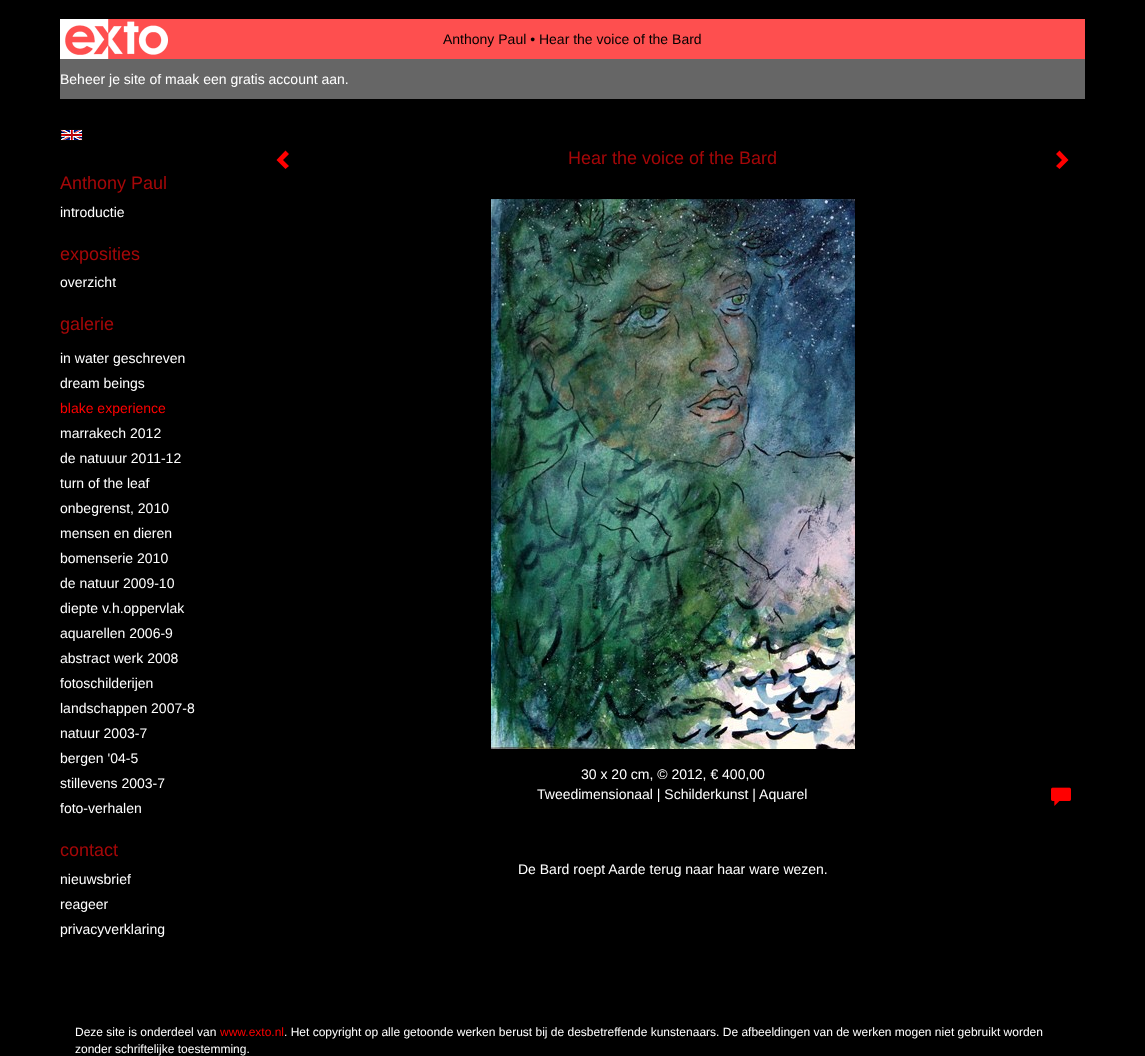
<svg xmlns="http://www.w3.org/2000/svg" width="1145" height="1056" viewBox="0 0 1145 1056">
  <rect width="100%" height="100%" fill="#000"/>
  <path d="M65 19h1020v40H65z" fill="#fe4f4f"/>
  <image x="60" y="19" width="108" height="40" href="img/1.png"/>
  <path d="M60 59h1025v40H60z" fill="#666"/>
  <image x="60" y="129" width="23" height="12" href="img/2.png"/>
  <path d="M289 154L283 160L289 166L285.5 169L276.5 160L285.5 150.5Z" fill="#f00"/>
  <path d="M1068.5 160L1059.5 169L1056 166L1062 160L1056 154L1059.5 150.5Z" fill="#f00"/>
  <image x="491" y="199" width="364" height="550" href="img/3.png"/>
  <image x="1051" y="787" width="20" height="19" href="img/4.png"/>
  <text x="443" y="44" font-family="Liberation Sans" font-size="14" fill="#000">Anthony Paul • Hear the voice of the Bard</text>
  <text x="60" y="84" font-family="Liberation Sans" font-size="14" fill="#fff">Beheer je site of maak een gratis account aan.</text>
  <text x="60" y="189" font-family="Liberation Sans" font-size="18" fill="#a50708">Anthony Paul</text>
  <text x="60" y="217" font-family="Liberation Sans" font-size="14" fill="#fff">introductie</text>
  <text x="60" y="260" font-family="Liberation Sans" font-size="18" fill="#a50708">exposities</text>
  <text x="60" y="287" font-family="Liberation Sans" font-size="14" fill="#fff">overzicht</text>
  <text x="60" y="330" font-family="Liberation Sans" font-size="18" fill="#a50708">galerie</text>
  <g font-family="Liberation Sans" font-size="14" fill="#fff">
    <text x="60" y="363">in water geschreven</text>
    <text x="60" y="388">dream beings</text>
  </g>
  <text x="60" y="413" font-family="Liberation Sans" font-size="14" fill="#f00">blake experience</text>
  <g font-family="Liberation Sans" font-size="14" fill="#fff">
    <text x="60" y="438">marrakech 2012</text>
    <text x="60" y="463">de natuuur 2011-12</text>
    <text x="60" y="488">turn of the leaf</text>
    <text x="60" y="513">onbegrenst, 2010</text>
    <text x="60" y="538">mensen en dieren</text>
    <text x="60" y="563">bomenserie 2010</text>
    <text x="60" y="588">de natuur 2009-10</text>
    <text x="60" y="613">diepte v.h.oppervlak</text>
    <text x="60" y="638">aquarellen 2006-9</text>
    <text x="60" y="663">abstract werk 2008</text>
    <text x="60" y="688">fotoschilderijen</text>
    <text x="60" y="713">landschappen 2007-8</text>
    <text x="60" y="738">natuur 2003-7</text>
    <text x="60" y="763">bergen '04-5</text>
    <text x="60" y="788">stillevens 2003-7</text>
    <text x="60" y="813">foto-verhalen</text>
  </g>
  <text x="60" y="856" font-family="Liberation Sans" font-size="18" fill="#a50708">contact</text>
  <g font-family="Liberation Sans" font-size="14" fill="#fff">
    <text x="60" y="884">nieuwsbrief</text>
    <text x="60" y="909">reageer</text>
    <text x="60" y="934">privacyverklaring</text>
  </g>
  <text x="568" y="164" font-family="Liberation Sans" font-size="18" fill="#a50708">Hear the voice of the Bard</text>
  <g font-family="Liberation Sans" font-size="14" fill="#fff">
    <text x="581" y="779">30 x 20 cm, © 2012, € 400,00</text>
    <text x="537" y="799">Tweedimensionaal | Schilderkunst | Aquarel</text>
    <text x="518" y="874">De Bard roept Aarde terug naar haar ware wezen.</text>
  </g>
  <text x="75" y="1036" font-family="Liberation Sans" font-size="12" fill="#fff">Deze site is onderdeel van</text>
  <text x="220" y="1036" font-family="Liberation Sans" font-size="12" fill="#f00">www.exto.nl</text>
  <g font-family="Liberation Sans" font-size="12" fill="#fff">
    <text x="284" y="1036">. Het copyright op alle getoonde werken berust bij de desbetreffende kunstenaars. De afbeeldingen van de werken mogen niet gebruikt worden</text>
    <text x="75" y="1053">zonder schriftelijke toestemming.</text>
  </g>
</svg>
